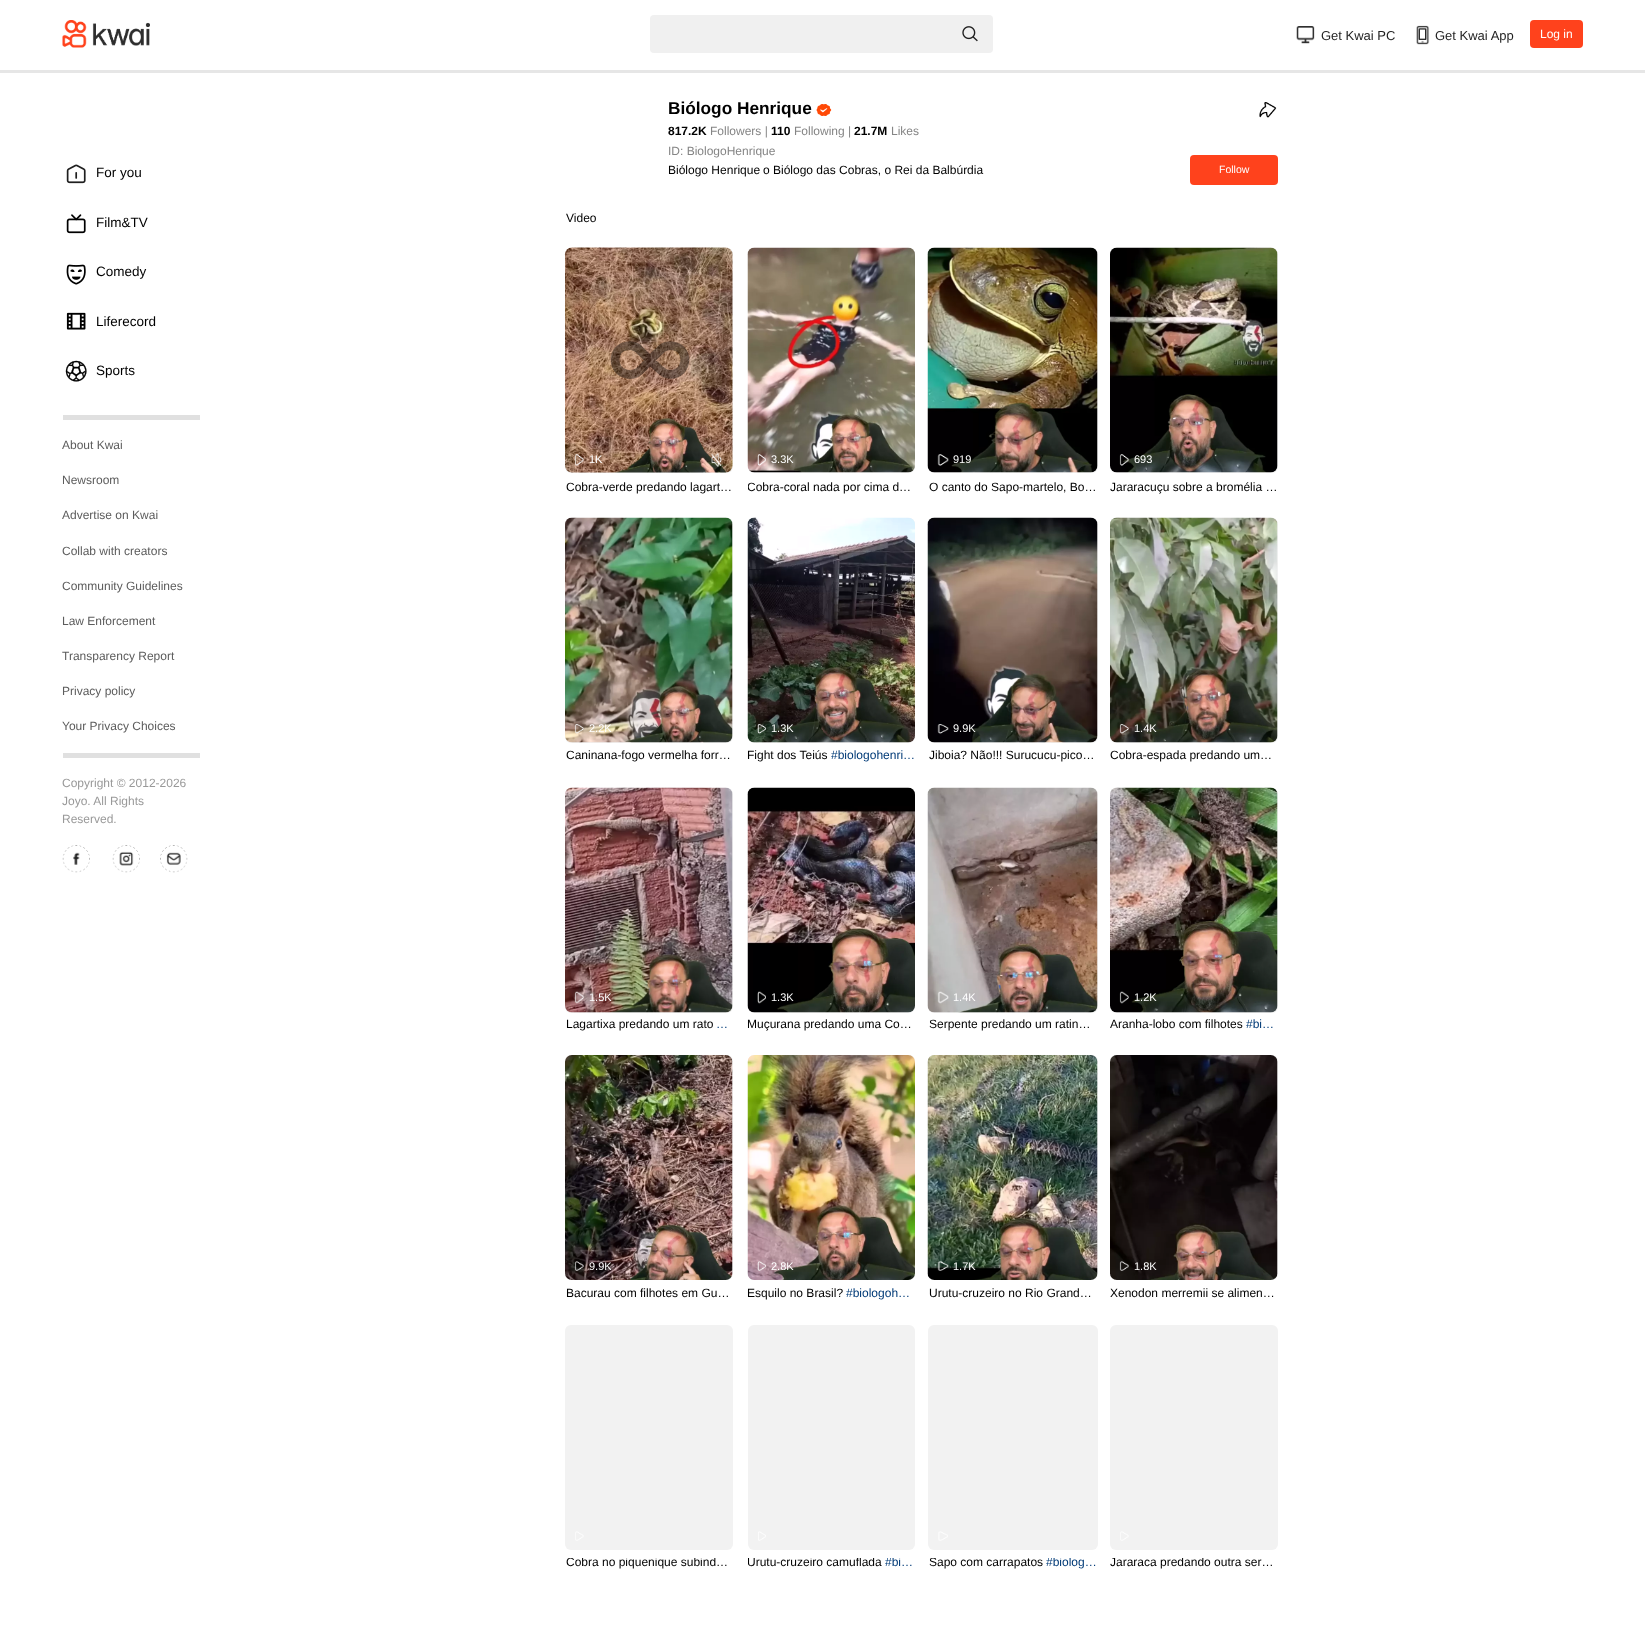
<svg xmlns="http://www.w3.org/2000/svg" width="1645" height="1625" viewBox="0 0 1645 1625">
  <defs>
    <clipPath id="clip1"><path d="M748 480h167v18H748z"/></clipPath>
    <clipPath id="clip2"><path d="M565 1558h168v15H565z"/></clipPath>
    <clipPath id="clip3"><path d="M748 1558h167v15H748z"/></clipPath>
    <clipPath id="clip4"><path d="M928 1558h170v15H928z"/></clipPath>
    <clipPath id="clip5"><path d="M1110 1558h168v15H1110z"/></clipPath>
  </defs>
  <rect width="100%" height="100%" fill="#fff"/>
  <path d="M0 70h1645v3H0z" fill="#e6e6e6"/>
  <image x="62" y="20" width="88" height="28" href="img/1.png"/>
  <rect x="650" y="15" width="343" height="38" rx="4" fill="#f0f0f0"/>
  <image x="962" y="26" width="16" height="16" href="img/2.png"/>
  <image x="1296" y="26" width="19" height="18" href="img/3.png"/>
  <image x="1416" y="25" width="14" height="20" href="img/4.png"/>
  <rect x="1530" y="20" width="53" height="28" rx="4" fill="#ff421c"/>
  <image x="66" y="164" width="20" height="20" href="img/5.png"/>
  <image x="66" y="214" width="20" height="20" href="img/6.png"/>
  <image x="66" y="264" width="20" height="21" href="img/7.png"/>
  <image x="66" y="312" width="20" height="18" href="img/8.png"/>
  <image x="65" y="360" width="22" height="22" href="img/9.png"/>
  <path d="M63 415h137v5H63z" fill="#e0e0e0"/>
  <path d="M63 753h137v5H63z" fill="#e0e0e0"/>
  <image x="62" y="845" width="28" height="28" href="img/10.png"/>
  <image x="112" y="845" width="28" height="28" href="img/11.png"/>
  <image x="160" y="845" width="28" height="28" href="img/12.png"/>
  <image x="816" y="104" width="16" height="12" href="img/13.png"/>
  <image x="1259" y="102" width="18" height="16" href="img/14.png"/>
  <rect x="1190" y="155" width="88" height="30" rx="4" fill="#ff421c"/>
  <rect x="565" y="248" width="168" height="225" rx="6" fill="#f2f2f2"/>
  <image x="564" y="247" width="169" height="226" href="img/15.png"/>
  <path d="M650 360L662.5 348C665.5 346 669.5 345 673.5 346C692 349.5 686.5 378 667.5 374C663 373 660 370 656.5 366.5L637.5 348C634.5 346 630.5 345 626.5 346C611.5 348.5 611 371 626.5 374C630 375 633.5 374.5 636.5 373C641.5 370 646 364 650 360" fill="none" stroke="#00000066" stroke-width="8.8" stroke-linecap="round"/>
  <image x="574" y="454" width="10" height="12" href="img/16.png"/>
  <image x="711" y="453" width="11" height="14" href="img/17.png"/>
  <rect x="748" y="248" width="167" height="225" rx="6" fill="#f2f2f2"/>
  <image x="747" y="247" width="168" height="226" href="img/18.png"/>
  <image x="757" y="454" width="9" height="12" href="img/19.png"/>
  <rect x="928" y="248" width="170" height="225" rx="6" fill="#f2f2f2"/>
  <image x="927" y="247" width="171" height="226" href="img/20.png"/>
  <image x="937" y="454" width="12" height="12" href="img/21.png"/>
  <rect x="1110" y="248" width="168" height="225" rx="6" fill="#f2f2f2"/>
  <image x="1110" y="247" width="168" height="226" href="img/22.png"/>
  <image x="1119" y="454" width="10" height="12" href="img/23.png"/>
  <rect x="565" y="518" width="168" height="225" rx="6" fill="#f2f2f2"/>
  <image x="565" y="517" width="168" height="226" href="img/24.png"/>
  <image x="574" y="724" width="10" height="10" href="img/25.png"/>
  <rect x="748" y="518" width="167" height="225" rx="6" fill="#f2f2f2"/>
  <image x="747" y="517" width="168" height="226" href="img/26.png"/>
  <image x="757" y="724" width="9" height="10" href="img/27.png"/>
  <rect x="928" y="518" width="170" height="225" rx="6" fill="#f2f2f2"/>
  <image x="927" y="517" width="171" height="226" href="img/28.png"/>
  <image x="937" y="724" width="12" height="10" href="img/29.png"/>
  <rect x="1110" y="518" width="168" height="225" rx="6" fill="#f2f2f2"/>
  <image x="1110" y="517" width="168" height="226" href="img/30.png"/>
  <image x="1119" y="724" width="10" height="10" href="img/31.png"/>
  <rect x="565" y="788" width="168" height="225" rx="6" fill="#f2f2f2"/>
  <image x="565" y="787" width="168" height="226" href="img/32.png"/>
  <image x="574" y="991" width="10" height="13" href="img/33.png"/>
  <rect x="748" y="788" width="167" height="225" rx="6" fill="#f2f2f2"/>
  <image x="747" y="787" width="168" height="226" href="img/34.png"/>
  <image x="757" y="991" width="9" height="13" href="img/35.png"/>
  <rect x="928" y="788" width="170" height="225" rx="6" fill="#f2f2f2"/>
  <image x="927" y="787" width="171" height="226" href="img/36.png"/>
  <image x="937" y="991" width="12" height="13" href="img/37.png"/>
  <rect x="1110" y="788" width="168" height="225" rx="6" fill="#f2f2f2"/>
  <image x="1110" y="787" width="168" height="226" href="img/38.png"/>
  <image x="1119" y="991" width="10" height="13" href="img/39.png"/>
  <rect x="565" y="1055" width="168" height="225" rx="6" fill="#f2f2f2"/>
  <image x="565" y="1055" width="168" height="225" href="img/40.png"/>
  <image x="574" y="1261" width="10" height="10" href="img/41.png"/>
  <rect x="748" y="1055" width="167" height="225" rx="6" fill="#f2f2f2"/>
  <image x="747" y="1055" width="168" height="225" href="img/42.png"/>
  <image x="757" y="1261" width="9" height="10" href="img/43.png"/>
  <rect x="928" y="1055" width="170" height="225" rx="6" fill="#f2f2f2"/>
  <image x="927" y="1055" width="171" height="225" href="img/44.png"/>
  <image x="937" y="1261" width="12" height="10" href="img/45.png"/>
  <rect x="1110" y="1055" width="168" height="225" rx="6" fill="#f2f2f2"/>
  <image x="1110" y="1055" width="168" height="225" href="img/46.png"/>
  <image x="1119" y="1261" width="10" height="10" href="img/47.png"/>
  <rect x="565" y="1325" width="168" height="225" rx="6" fill="#f2f2f2"/>
  <image x="575" y="1531" width="9" height="10" href="img/48.png"/>
  <rect x="748" y="1325" width="167" height="225" rx="6" fill="#f2f2f2"/>
  <image x="758" y="1531" width="8" height="10" href="img/49.png"/>
  <rect x="928" y="1325" width="170" height="225" rx="6" fill="#f2f2f2"/>
  <image x="938" y="1531" width="10" height="10" href="img/50.png"/>
  <rect x="1110" y="1325" width="168" height="225" rx="6" fill="#f2f2f2"/>
  <image x="1120" y="1531" width="9" height="10" href="img/48.png"/>
  <g font-family="Liberation Sans" font-size="13" fill="#1f1f1f">
    <text x="1321" y="40">Get Kwai PC</text>
    <text x="1435" y="40">Get Kwai App</text>
  </g>
  <text x="1540" y="38" font-family="Liberation Sans" font-size="12" fill="#fff">Log in</text>
  <g font-family="Liberation Sans" font-size="13.5" fill="#000">
    <text x="96" y="177">For you</text>
    <text x="96" y="227">Film&amp;TV</text>
    <text x="96" y="276">Comedy</text>
    <text x="96" y="326">Liferecord</text>
    <text x="96" y="375">Sports</text>
  </g>
  <g font-family="Liberation Sans" font-size="12" fill="#5c5c5c">
    <text x="62" y="449">About Kwai</text>
    <text x="62" y="484">Newsroom</text>
    <text x="62" y="519">Advertise on Kwai</text>
    <text x="62" y="555">Collab with creators</text>
    <text x="62" y="590">Community Guidelines</text>
    <text x="62" y="625">Law Enforcement</text>
    <text x="62" y="660">Transparency Report</text>
    <text x="62" y="695">Privacy policy</text>
    <text x="62" y="730">Your Privacy Choices</text>
  </g>
  <g font-family="Liberation Sans" font-size="12" fill="#999">
    <text x="62" y="787">Copyright © 2012-2026</text>
    <text x="62" y="805">Joyo. All Rights</text>
    <text x="62" y="823">Reserved.</text>
  </g>
  <text x="668" y="114" font-family="Liberation Sans" font-size="17.25" font-weight="bold" fill="#000">Biólogo Henrique</text>
  <text x="668" y="135" font-family="Liberation Sans" font-size="12" font-weight="bold" fill="#000">817.2K</text>
  <text x="710" y="135" font-family="Liberation Sans" font-size="12" fill="#858585">Followers |</text>
  <text x="771" y="135" font-family="Liberation Sans" font-size="12" font-weight="bold" fill="#000">110</text>
  <text x="794" y="135" font-family="Liberation Sans" font-size="12" fill="#858585">Following |</text>
  <text x="854" y="135" font-family="Liberation Sans" font-size="12" font-weight="bold" fill="#000">21.7M</text>
  <g font-family="Liberation Sans" font-size="12" fill="#858585">
    <text x="891" y="135">Likes</text>
    <text x="668" y="155">ID: BiologoHenrique</text>
  </g>
  <g font-family="Liberation Sans" font-size="12" fill="#000">
    <text x="668" y="174">Biólogo Henrique</text>
    <text x="763" y="174">o Biólogo das Cobras, o Rei da Balbúrdia</text>
  </g>
  <text x="1219" y="173" font-family="Liberation Sans" font-size="10.5" fill="#fff">Follow</text>
  <text x="566" y="222" font-family="Liberation Sans" font-size="12" fill="#000">Video</text>
  <text x="589" y="463" font-family="Liberation Sans" font-size="11" fill="#fff">1K</text>
  <text x="566" y="491" font-family="Liberation Sans" font-size="12" fill="#000">Cobra-verde predando lagart…</text>
  <text x="771" y="463" font-family="Liberation Sans" font-size="11" fill="#fff">3.3K</text>
  <g clip-path="url(#clip1)">
    <text x="747" y="491" font-family="Liberation Sans" font-size="12" fill="#000">Cobra-coral nada por cima d…</text>
  </g>
  <text x="953" y="463" font-family="Liberation Sans" font-size="11" fill="#fff">919</text>
  <text x="929" y="491" font-family="Liberation Sans" font-size="12" fill="#000">O canto do Sapo-martelo, Bo…</text>
  <text x="1134" y="463" font-family="Liberation Sans" font-size="11" fill="#fff">693</text>
  <text x="1110" y="491" font-family="Liberation Sans" font-size="12" fill="#000">Jararacuçu sobre a bromélia …</text>
  <text x="589" y="732" font-family="Liberation Sans" font-size="11" fill="#fff">2.2K</text>
  <text x="566" y="759" font-family="Liberation Sans" font-size="12" fill="#000">Caninana-fogo vermelha forr…</text>
  <text x="771" y="732" font-family="Liberation Sans" font-size="11" fill="#fff">1.3K</text>
  <text x="747" y="759" font-family="Liberation Sans" font-size="12" fill="#000">Fight dos Teiús</text>
  <text x="831" y="759" font-family="Liberation Sans" font-size="12" fill="#013a77">#biologohenri…</text>
  <text x="953" y="732" font-family="Liberation Sans" font-size="11" fill="#fff">9.9K</text>
  <text x="929" y="759" font-family="Liberation Sans" font-size="12" fill="#000">Jiboia? Não!!! Surucucu-pico…</text>
  <text x="1134" y="732" font-family="Liberation Sans" font-size="11" fill="#fff">1.4K</text>
  <text x="1110" y="759" font-family="Liberation Sans" font-size="12" fill="#000">Cobra-espada predando um…</text>
  <text x="589" y="1001" font-family="Liberation Sans" font-size="11" fill="#fff">1.5K</text>
  <text x="566" y="1028" font-family="Liberation Sans" font-size="12" fill="#000">Lagartixa predando um rato</text>
  <text x="716" y="1028" font-family="Liberation Sans" font-size="12" fill="#013a77">…</text>
  <text x="771" y="1001" font-family="Liberation Sans" font-size="11" fill="#fff">1.3K</text>
  <text x="747" y="1028" font-family="Liberation Sans" font-size="12" fill="#000">Muçurana predando uma Co…</text>
  <text x="953" y="1001" font-family="Liberation Sans" font-size="11" fill="#fff">1.4K</text>
  <text x="929" y="1028" font-family="Liberation Sans" font-size="12" fill="#000">Serpente predando um ratin…</text>
  <text x="1134" y="1001" font-family="Liberation Sans" font-size="11" fill="#fff">1.2K</text>
  <text x="1110" y="1028" font-family="Liberation Sans" font-size="12" fill="#000">Aranha-lobo com filhotes</text>
  <text x="1246" y="1028" font-family="Liberation Sans" font-size="12" fill="#013a77">#bi…</text>
  <text x="589" y="1270" font-family="Liberation Sans" font-size="11" fill="#fff">9.9K</text>
  <text x="566" y="1297" font-family="Liberation Sans" font-size="12" fill="#000">Bacurau com filhotes em Gu…</text>
  <text x="771" y="1270" font-family="Liberation Sans" font-size="11" fill="#fff">2.8K</text>
  <text x="747" y="1297" font-family="Liberation Sans" font-size="12" fill="#000">Esquilo no Brasil?</text>
  <text x="846" y="1297" font-family="Liberation Sans" font-size="12" fill="#013a77">#biologoh…</text>
  <text x="953" y="1270" font-family="Liberation Sans" font-size="11" fill="#fff">1.7K</text>
  <text x="929" y="1297" font-family="Liberation Sans" font-size="12" fill="#000">Urutu-cruzeiro no Rio Grand…</text>
  <text x="1134" y="1270" font-family="Liberation Sans" font-size="11" fill="#fff">1.8K</text>
  <text x="1110" y="1297" font-family="Liberation Sans" font-size="12" fill="#000">Xenodon merremii se alimen…</text>
  <g clip-path="url(#clip2)">
    <text x="566" y="1566" font-family="Liberation Sans" font-size="12" fill="#000">Cobra no piquenique subind…</text>
  </g>
  <g clip-path="url(#clip3)">
    <text x="747" y="1566" font-family="Liberation Sans" font-size="12" fill="#000">Urutu-cruzeiro camuflada</text>
    <text x="885" y="1566" font-family="Liberation Sans" font-size="12" fill="#013a77">#bi…</text>
  </g>
  <g clip-path="url(#clip4)">
    <text x="929" y="1566" font-family="Liberation Sans" font-size="12" fill="#000">Sapo com carrapatos</text>
    <text x="1046" y="1566" font-family="Liberation Sans" font-size="12" fill="#013a77">#biolog…</text>
  </g>
  <g clip-path="url(#clip5)">
    <text x="1110" y="1566" font-family="Liberation Sans" font-size="12" fill="#000">Jararaca predando outra ser…</text>
  </g>
</svg>
